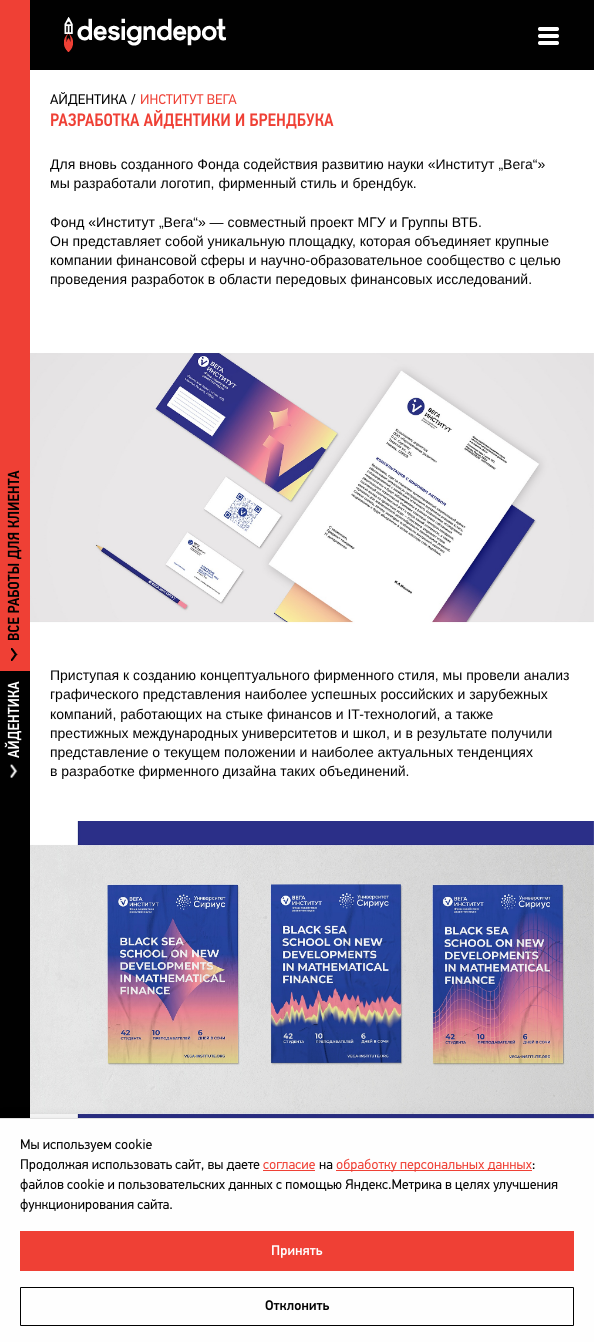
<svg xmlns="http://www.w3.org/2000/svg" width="594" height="1342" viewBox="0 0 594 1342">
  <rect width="100%" height="100%" fill="#fff"/>
  <path d="M0 0h30v671H0z" fill="#ef4035"/>
  <image x="7" y="470" width="15" height="170" href="img/1.png"/>
  <image x="11" y="648" width="7" height="13" href="img/2.png"/>
  <path d="M0 671h30v447H0z" fill="#010101"/>
  <image x="4" y="681" width="18" height="77" href="img/3.png"/>
  <image x="10" y="764" width="8" height="14" href="img/4.png"/>
  <path d="M30 0h564v70H30z" fill="#010101"/>
  <image x="64" y="17" width="162" height="35" href="img/5.png"/>
  <image x="538" y="27" width="21" height="18" href="img/6.png"/>
  <image x="50" y="92" width="77" height="15" href="img/7.png"/>
  <path d="M132 104.5H131L134.5 94H135.5Z" fill="#010101"/>
  <image x="141" y="94" width="96" height="11" href="img/8.png"/>
  <image x="51" y="110" width="283" height="19" href="img/9.png"/>
  <image x="30" y="352" width="564" height="272" href="img/10.png"/>
  <image x="30" y="821" width="564" height="297" href="img/11.png"/>
  <path d="M0 1116h594v224H0z" fill="#0000001a" filter="blur(5px)"/>
  <path d="M0 1119h594v223H0z" fill="#fefefe"/>
  <path d="M0 1118h594v1H0z" fill="#e0e0e0"/>
  <image x="21" y="1138" width="131" height="14" href="img/12.png"/>
  <image x="21" y="1159" width="239" height="13" href="img/13.png"/>
  <image x="263" y="1162" width="52" height="8" href="img/14.png"/>
  <image x="319" y="1162" width="14" height="8" href="img/15.png"/>
  <path d="M336 1170h196v1H336z" fill="#ef4035"/>
  <image x="336" y="1158" width="196" height="14" href="img/16.png"/>
  <image x="532" y="1163" width="3" height="6" href="img/17.png"/>
  <path d="M263 1170h52v1H263z" fill="#ef4035"/>
  <image x="20" y="1178" width="253" height="14" href="img/18.png"/>
  <image x="276" y="1179" width="282" height="13" href="img/19.png"/>
  <image x="20" y="1198" width="152" height="14" href="img/20.png"/>
  <path d="M20 1231h554v40H20z" fill="#ef4035"/>
  <image x="272" y="1245" width="51" height="13" href="img/21.png"/>
  <path d="M20.5 1287.5h553v38H20.5z" fill="none" stroke="#010101"/>
  <image x="265" y="1300" width="65" height="11" href="img/22.png"/>
  <g font-family="Liberation Sans" font-size="14" fill="#010101">
    <text x="50" y="169">Для вновь созданного Фонда содействия развитию науки «Институт „Вега“»</text>
    <text x="50" y="188">мы разработали логотип, фирменный стиль и брендбук.</text>
    <text x="50" y="227">Фонд «Институт „Вега“» — совместный проект МГУ и Группы ВТБ.</text>
    <text x="50" y="246">Он представляет собой уникальную площадку, которая объединяет крупные</text>
    <text x="50" y="265">компании финансовой сферы и научно-образовательное сообщество с целью</text>
    <text x="50" y="284">проведения разработок в области передовых финансовых исследований.</text>
    <text x="50" y="680">Приступая к созданию концептуального фирменного стиля, мы провели анализ</text>
    <text x="50" y="699">графического представления наиболее успешных российских и зарубежных</text>
    <text x="50" y="719">компаний, работающих на стыке финансов и IT-технологий, а также</text>
    <text x="50" y="738">престижных международных университетов и школ, и в результате получили</text>
    <text x="50" y="757">представление о текущем положении и наиболее актуальных тенденциях</text>
    <text x="50" y="776">в разработке фирменного дизайна таких объединений.</text>
  </g>
</svg>
